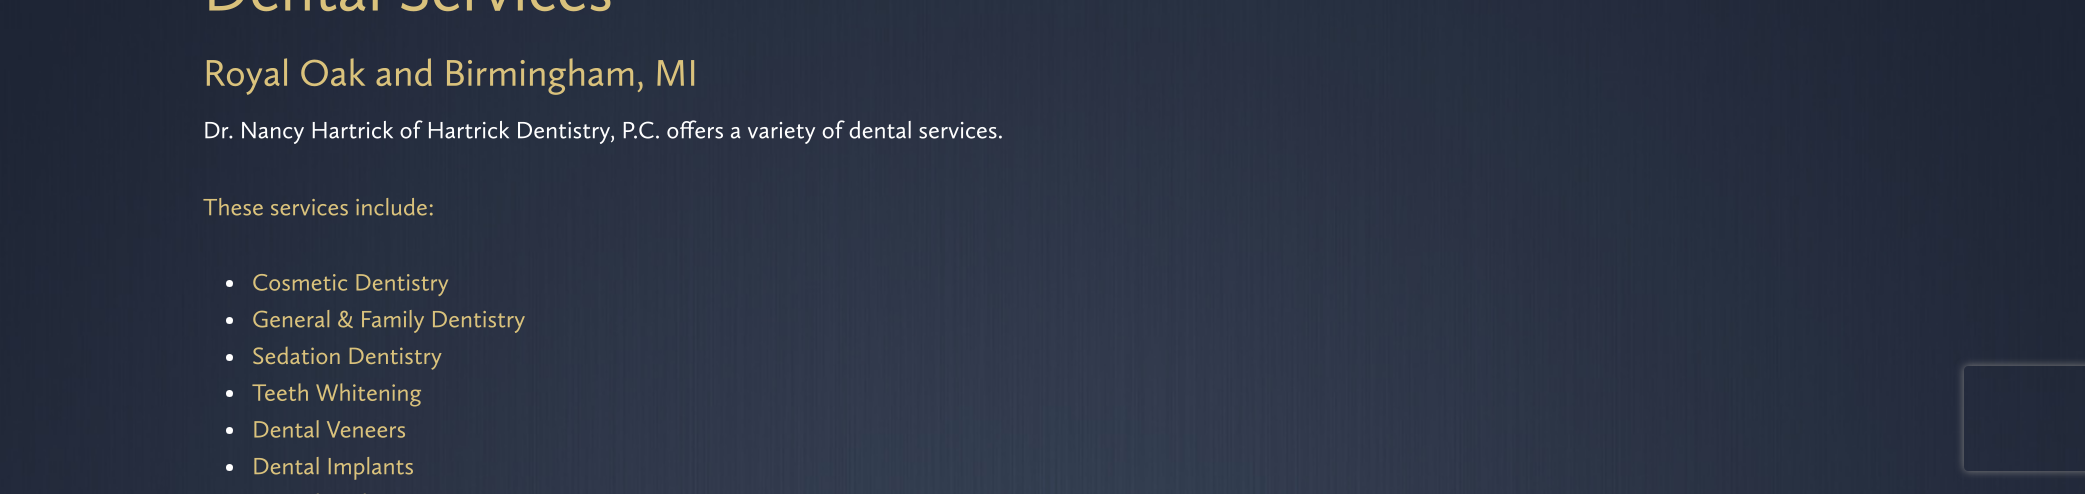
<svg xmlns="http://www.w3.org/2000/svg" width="2085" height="494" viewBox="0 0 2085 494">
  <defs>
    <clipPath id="clip1"><path d="M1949 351H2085V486H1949ZM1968 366H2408C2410 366 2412 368 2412 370V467C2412 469 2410 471 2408 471H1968C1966 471 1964 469 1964 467V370C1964 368 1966 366 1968 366Z" clip-rule="evenodd"/></clipPath>
  </defs>
  <rect width="100%" height="100%" fill="#fff"/>
  <image x="0" y="0" width="2085" height="494" href="img/1.png"/>
  <image x="209" y="0" width="402" height="12" href="img/2.png"/>
  <image x="206" y="58" width="489" height="37" href="img/3.png"/>
  <image x="205" y="120" width="797" height="24" href="img/4.png"/>
  <image x="203" y="197" width="230" height="19" href="img/5.png"/>
  <circle cx="229.5" cy="283.5" r="3.5" fill="#fff"/>
  <image x="253" y="273" width="196" height="24" href="img/6.png"/>
  <circle cx="229.5" cy="320.5" r="3.5" fill="#fff"/>
  <image x="253" y="309" width="272" height="24" href="img/7.png"/>
  <circle cx="229.5" cy="357.5" r="3.5" fill="#fff"/>
  <image x="253" y="346" width="189" height="24" href="img/8.png"/>
  <circle cx="229.5" cy="393.5" r="3.5" fill="#fff"/>
  <image x="252" y="383" width="170" height="24" href="img/9.png"/>
  <circle cx="229.5" cy="430.5" r="3.5" fill="#fff"/>
  <image x="254" y="420" width="152" height="18" href="img/10.png"/>
  <circle cx="229.5" cy="467.5" r="3.5" fill="#fff"/>
  <image x="254" y="456" width="159" height="24" href="img/11.png"/>
  <image x="316" y="493" width="50" height="1" href="img/12.png"/>
  <g clip-path="url(#clip1)">
    <rect x="1964" y="366" width="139" height="105" rx="4" fill="#808080" filter="blur(4.5px)"/>
  </g>
</svg>
